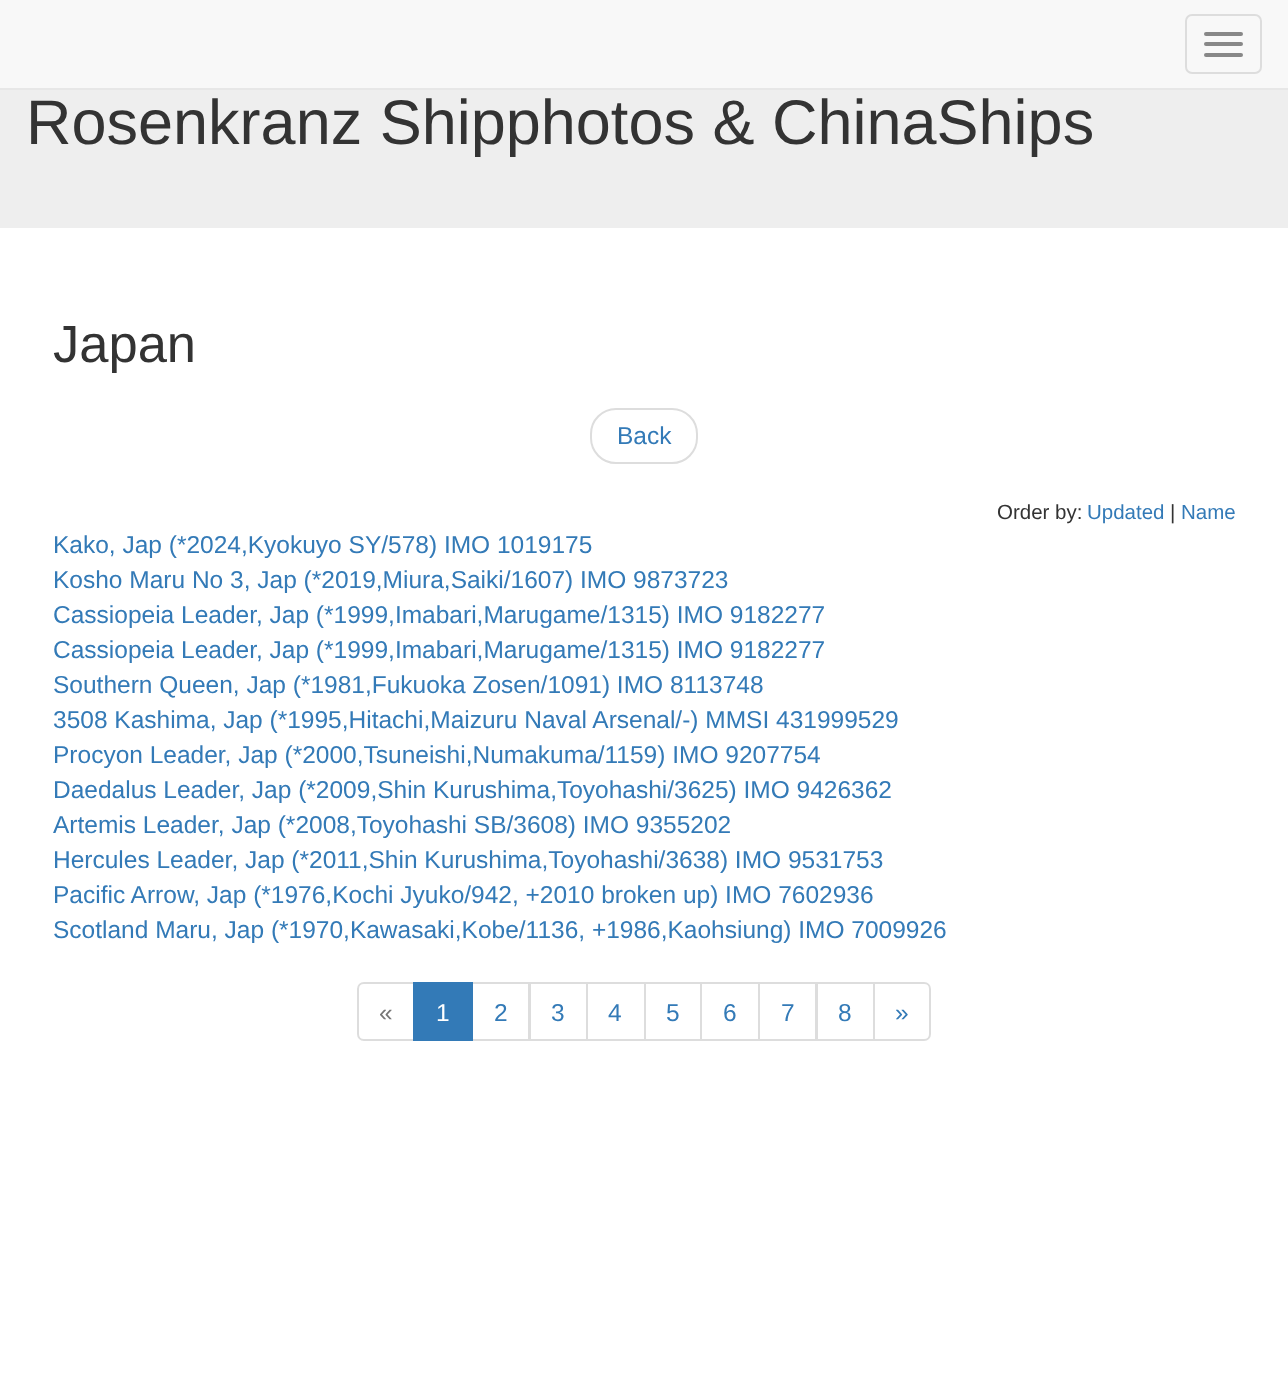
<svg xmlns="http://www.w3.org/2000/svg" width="1288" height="1382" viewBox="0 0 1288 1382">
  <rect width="100%" height="100%" fill="#fff"/>
  <path d="M0 0h1288v88H0z" fill="#f8f8f8"/>
  <path d="M0 88h1288v2H0z" fill="#e7e7e7"/>
  <rect x="1186" y="15" width="75" height="58" rx="6" fill="none" stroke="#ddd" stroke-width="2"/>
  <rect x="1204" y="32" width="39" height="4" rx="2" fill="#888"/>
  <rect x="1204" y="42" width="39" height="4" rx="2" fill="#888"/>
  <rect x="1204" y="53" width="39" height="4" rx="2" fill="#888"/>
  <path d="M0 90h1288v138H0z" fill="#eee"/>
  <rect x="591" y="409" width="106" height="54" rx="25" fill="none" stroke="#ddd" stroke-width="2"/>
  <path d="M364 983H414V1040H364C360.5 1040 358 1037.5 358 1034V989C358 985.5 360.5 983 364 983Z" fill="none" stroke="#ddd" stroke-width="2"/>
  <path d="M472 983h57v57H472z" fill="none" stroke="#ddd" stroke-width="2"/>
  <path d="M413 982h60v59H413z" fill="#337ab7"/>
  <path d="M530 983h57v57H530z" fill="none" stroke="#ddd" stroke-width="2"/>
  <path d="M587 983h58v57H587z" fill="none" stroke="#ddd" stroke-width="2"/>
  <path d="M645 983h56v57H645z" fill="none" stroke="#ddd" stroke-width="2"/>
  <path d="M701 983h58v57H701z" fill="none" stroke="#ddd" stroke-width="2"/>
  <path d="M759 983h57v57H759z" fill="none" stroke="#ddd" stroke-width="2"/>
  <path d="M817 983h57v57H817z" fill="none" stroke="#ddd" stroke-width="2"/>
  <path d="M874 983H924C927.5 983 930 985.5 930 989V1034C930 1037.5 927.5 1040 924 1040H874Z" fill="#fff" stroke="#ddd" stroke-width="2"/>
  <text x="26" y="144" font-family="Liberation Sans" font-size="63" fill="#333">Rosenkranz Shipphotos &amp; ChinaShips</text>
  <text x="53" y="362" font-family="Liberation Sans" font-size="52.5" fill="#333">Japan</text>
  <text x="617" y="444" font-family="Liberation Sans" font-size="24.5" fill="#337ab7">Back</text>
  <text x="997" y="519" font-family="Liberation Sans" font-size="20.5" fill="#333">Order by:</text>
  <text x="1087" y="519" font-family="Liberation Sans" font-size="20.5" fill="#337ab7">Updated</text>
  <text x="1170" y="519" font-family="Liberation Sans" font-size="20.5" fill="#333">|</text>
  <text x="1181" y="519" font-family="Liberation Sans" font-size="20.5" fill="#337ab7">Name</text>
  <g font-family="Liberation Sans" font-size="24.5" fill="#337ab7">
    <text x="53" y="553">Kako, Jap (*2024,Kyokuyo SY/578) IMO 1019175</text>
    <text x="53" y="588">Kosho Maru No 3, Jap (*2019,Miura,Saiki/1607) IMO 9873723</text>
    <text x="53" y="623">Cassiopeia Leader, Jap (*1999,Imabari,Marugame/1315) IMO 9182277</text>
    <text x="53" y="658">Cassiopeia Leader, Jap (*1999,Imabari,Marugame/1315) IMO 9182277</text>
    <text x="53" y="693">Southern Queen, Jap (*1981,Fukuoka Zosen/1091) IMO 8113748</text>
    <text x="53" y="728">3508 Kashima, Jap (*1995,Hitachi,Maizuru Naval Arsenal/-) MMSI 431999529</text>
    <text x="53" y="763">Procyon Leader, Jap (*2000,Tsuneishi,Numakuma/1159) IMO 9207754</text>
    <text x="53" y="798">Daedalus Leader, Jap (*2009,Shin Kurushima,Toyohashi/3625) IMO 9426362</text>
    <text x="53" y="833">Artemis Leader, Jap (*2008,Toyohashi SB/3608) IMO 9355202</text>
    <text x="53" y="868">Hercules Leader, Jap (*2011,Shin Kurushima,Toyohashi/3638) IMO 9531753</text>
    <text x="53" y="903">Pacific Arrow, Jap (*1976,Kochi Jyuko/942, +2010 broken up) IMO 7602936</text>
    <text x="53" y="938">Scotland Maru, Jap (*1970,Kawasaki,Kobe/1136, +1986,Kaohsiung) IMO 7009926</text>
  </g>
  <text x="379" y="1021" font-family="Liberation Sans" font-size="24.5" fill="#777">«</text>
  <text x="436" y="1021" font-family="Liberation Sans" font-size="24.5" fill="#fff">1</text>
  <g font-family="Liberation Sans" font-size="24.5" fill="#337ab7">
    <text x="494" y="1021">2</text>
    <text x="551" y="1021">3</text>
    <text x="608" y="1021">4</text>
    <text x="666" y="1021">5</text>
    <text x="723" y="1021">6</text>
    <text x="781" y="1021">7</text>
    <text x="838" y="1021">8</text>
    <text x="895" y="1021">»</text>
  </g>
</svg>
